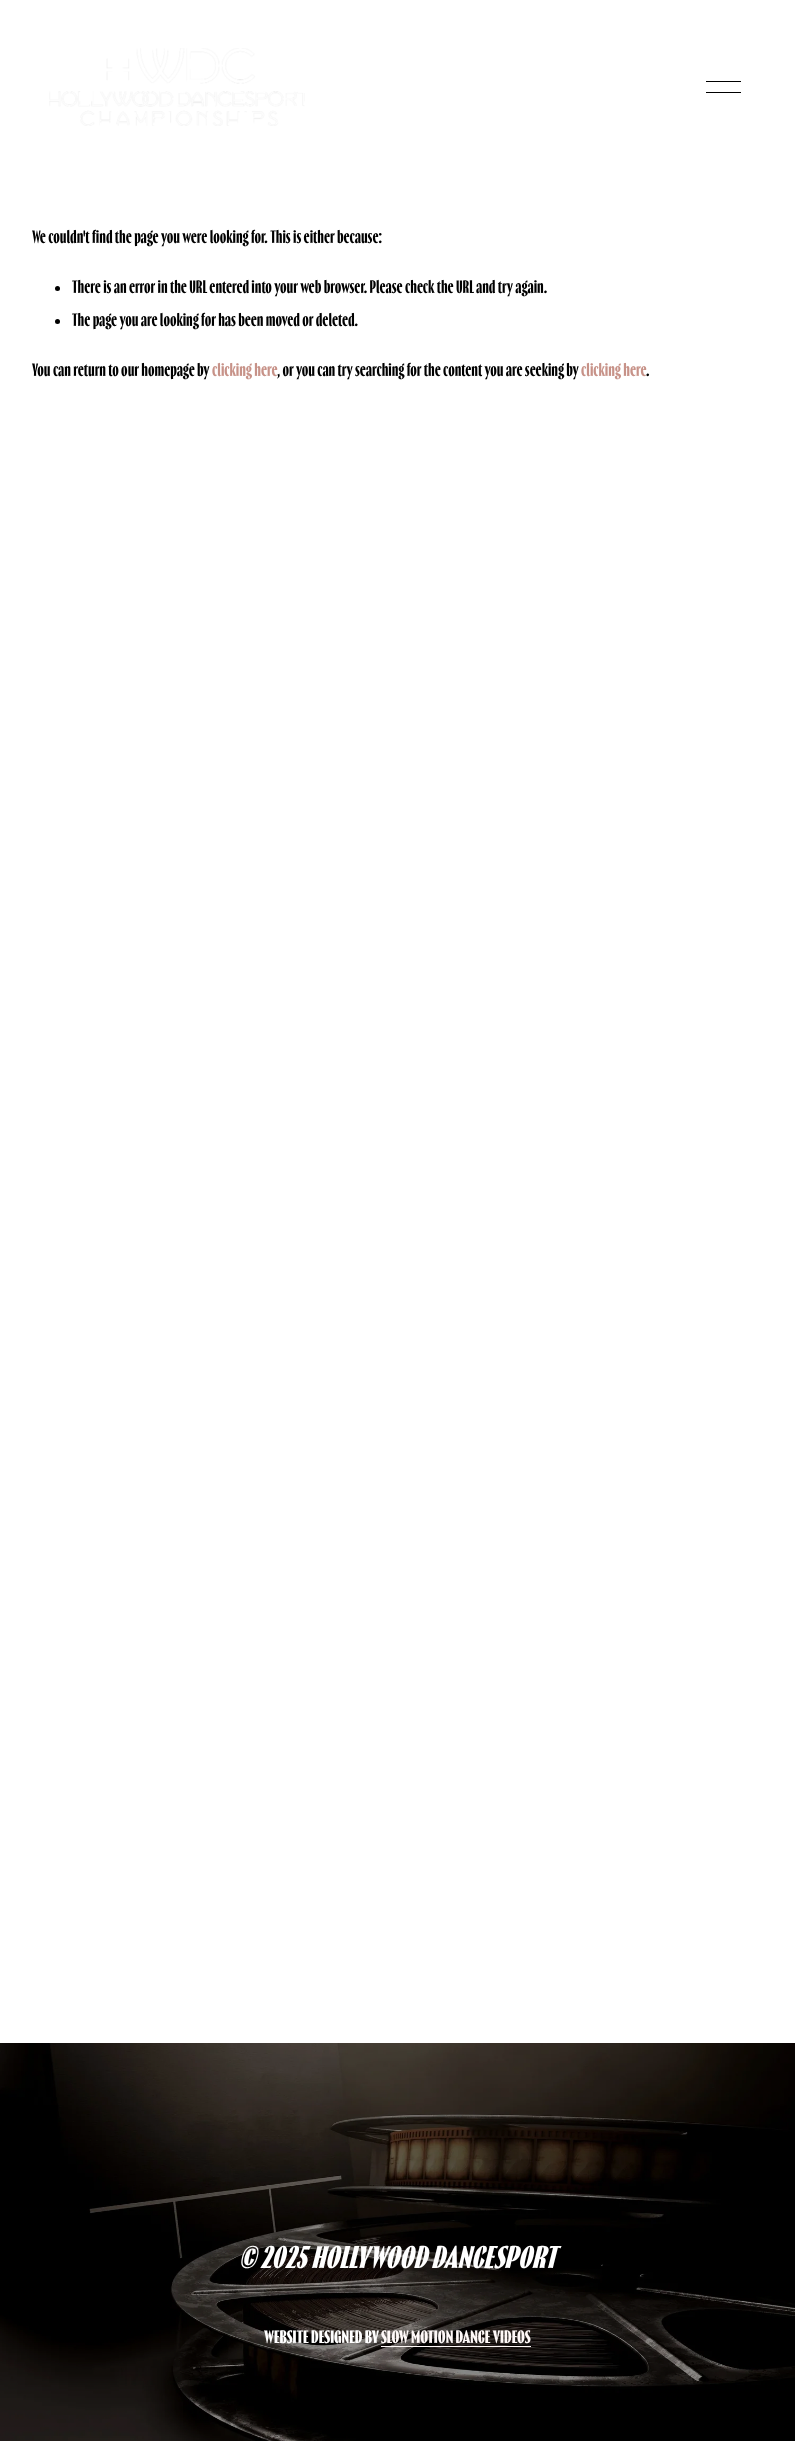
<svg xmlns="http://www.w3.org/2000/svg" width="795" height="2441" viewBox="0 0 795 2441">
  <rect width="100%" height="100%" fill="#fff"/>
  <image x="49" y="48" width="256" height="78" href="img/1.png"/>
  <path d="M706 81h35v1H706z" fill="#000"/>
  <path d="M706 92h35v1H706z" fill="#000"/>
  <circle cx="57.5" cy="288.5" r="2.5" fill="#000"/>
  <circle cx="57.5" cy="321.5" r="2.5" fill="#000"/>
  <image x="0" y="2043" width="795" height="398" href="img/2.png"/>
  <path d="M381 2346h150v1H381z" fill="#fff9f8"/>
  <g font-family="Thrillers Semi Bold" font-size="17.9" font-weight="600" fill="#000">
    <text x="32" y="243">We couldn't find the page you were looking for. This is either because:</text>
    <text x="72" y="293">There is an error in the URL entered into your web browser. Please check the URL and try again.</text>
    <text x="72" y="326">The page you are looking for has been moved or deleted.</text>
    <text x="32" y="376">You can return to our homepage by</text>
  </g>
  <text x="212" y="376" font-family="Thrillers Semi Bold" font-size="17.9" font-weight="600" fill="#c79288">clicking here</text>
  <text x="277" y="376" font-family="Thrillers Semi Bold" font-size="17.9" font-weight="600" fill="#000">, or you can try searching for the content you are seeking by</text>
  <text x="581" y="376" font-family="Thrillers Semi Bold" font-size="17.9" font-weight="600" fill="#c79288">clicking here</text>
  <text x="646" y="376" font-family="Thrillers Semi Bold" font-size="17.9" font-weight="600" fill="#000">.</text>
  <text x="239" y="2268" font-family="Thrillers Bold" font-size="31.25" font-weight="bold" font-style="italic" letter-spacing="0.3" fill="#fff">© 2025 HOLLYWOOD DANCESPORT</text>
  <text x="264" y="2343" font-family="Thrillers Bold" font-size="17.9" font-weight="bold" fill="#fff">WEBSITE DESIGNED BY</text>
  <text x="381" y="2343" font-family="Thrillers Bold" font-size="17.9" font-weight="bold" fill="#fff9f8">SLOW MOTION DANCE VIDEOS</text>
</svg>
